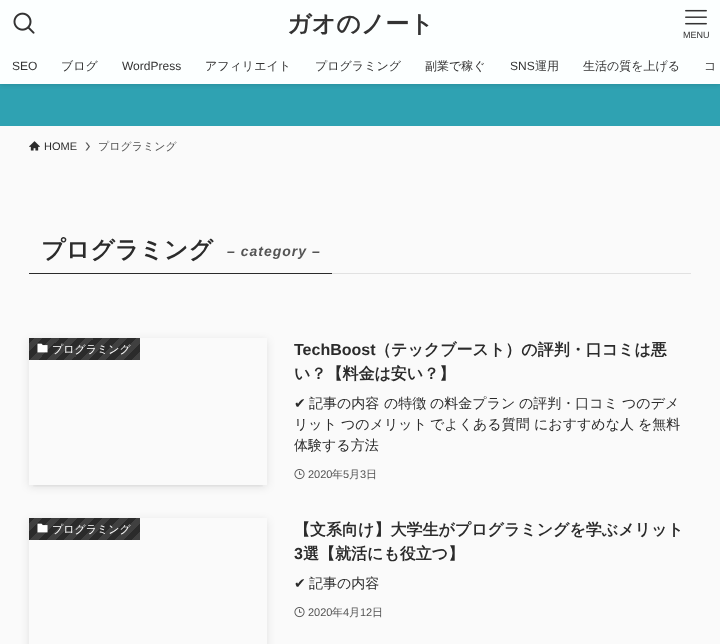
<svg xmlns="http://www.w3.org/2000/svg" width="720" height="644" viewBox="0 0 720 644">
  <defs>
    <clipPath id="clip1"><path d="M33 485h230v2H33z"/></clipPath>
    <clipPath id="clip2"><path d="M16 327H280V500H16ZM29 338H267V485H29Z" clip-rule="evenodd"/></clipPath>
    <linearGradient id="g1" gradientUnits="userSpaceOnUse" x1="118" y1="382" x2="50" y2="314"><stop offset="0" stop-color="#404040"/><stop offset="0.06" stop-color="#404040"/><stop offset="0.06" stop-color="#2b2b2b"/><stop offset="0.12" stop-color="#2b2b2b"/><stop offset="0.12" stop-color="#404040"/><stop offset="0.19" stop-color="#404040"/><stop offset="0.19" stop-color="#2b2b2b"/><stop offset="0.25" stop-color="#2b2b2b"/><stop offset="0.25" stop-color="#404040"/><stop offset="0.31" stop-color="#404040"/><stop offset="0.31" stop-color="#2b2b2b"/><stop offset="0.38" stop-color="#2b2b2b"/><stop offset="0.38" stop-color="#404040"/><stop offset="0.44" stop-color="#404040"/><stop offset="0.44" stop-color="#2b2b2b"/><stop offset="0.5" stop-color="#2b2b2b"/><stop offset="0.5" stop-color="#404040"/><stop offset="0.56" stop-color="#404040"/><stop offset="0.56" stop-color="#2b2b2b"/><stop offset="0.62" stop-color="#2b2b2b"/><stop offset="0.62" stop-color="#404040"/><stop offset="0.69" stop-color="#404040"/><stop offset="0.69" stop-color="#2b2b2b"/><stop offset="0.75" stop-color="#2b2b2b"/><stop offset="0.75" stop-color="#404040"/><stop offset="0.81" stop-color="#404040"/><stop offset="0.81" stop-color="#2b2b2b"/><stop offset="0.88" stop-color="#2b2b2b"/><stop offset="0.88" stop-color="#404040"/><stop offset="0.94" stop-color="#404040"/><stop offset="0.94" stop-color="#2b2b2b"/><stop offset="1" stop-color="#2b2b2b"/></linearGradient>
    <clipPath id="clip3"><path d="M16 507H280V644H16ZM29 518H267V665H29Z" clip-rule="evenodd"/></clipPath>
    <linearGradient id="g2" gradientUnits="userSpaceOnUse" x1="118" y1="562" x2="50" y2="494"><stop offset="0" stop-color="#404040"/><stop offset="0.06" stop-color="#404040"/><stop offset="0.06" stop-color="#2b2b2b"/><stop offset="0.12" stop-color="#2b2b2b"/><stop offset="0.12" stop-color="#404040"/><stop offset="0.19" stop-color="#404040"/><stop offset="0.19" stop-color="#2b2b2b"/><stop offset="0.25" stop-color="#2b2b2b"/><stop offset="0.25" stop-color="#404040"/><stop offset="0.31" stop-color="#404040"/><stop offset="0.31" stop-color="#2b2b2b"/><stop offset="0.38" stop-color="#2b2b2b"/><stop offset="0.38" stop-color="#404040"/><stop offset="0.44" stop-color="#404040"/><stop offset="0.44" stop-color="#2b2b2b"/><stop offset="0.5" stop-color="#2b2b2b"/><stop offset="0.5" stop-color="#404040"/><stop offset="0.56" stop-color="#404040"/><stop offset="0.56" stop-color="#2b2b2b"/><stop offset="0.62" stop-color="#2b2b2b"/><stop offset="0.62" stop-color="#404040"/><stop offset="0.69" stop-color="#404040"/><stop offset="0.69" stop-color="#2b2b2b"/><stop offset="0.75" stop-color="#2b2b2b"/><stop offset="0.75" stop-color="#404040"/><stop offset="0.81" stop-color="#404040"/><stop offset="0.81" stop-color="#2b2b2b"/><stop offset="0.88" stop-color="#2b2b2b"/><stop offset="0.88" stop-color="#404040"/><stop offset="0.94" stop-color="#404040"/><stop offset="0.94" stop-color="#2b2b2b"/><stop offset="1" stop-color="#2b2b2b"/></linearGradient>
  </defs>
  <rect width="100%" height="100%" fill="#fafafa"/>
  <path d="M0 84h720v42H0z" fill="#2fa2b2"/>
  <path d="M0 1h720v84H0z" fill="#0000001f" filter="blur(2px)"/>
  <path d="M0 0h720v84H0z" fill="#fcffff"/>
  <image x="13" y="12" width="22" height="22" href="img/1.png"/>
  <image x="685" y="9" width="22" height="16" href="img/2.png"/>
  <image x="29" y="141" width="11" height="10" href="img/3.png"/>
  <path d="M87 142.5H85.5L88.5 146.5L85.5 150.5H87L90 146.5Z" fill="#545454"/>
  <path d="M332 273h359v1H332z" fill="#e1e1e1"/>
  <path d="M29 273h303v1H29z" fill="#2b2b2b"/>
  <g clip-path="url(#clip1)">
    <path d="M33 346h230v139H33z" fill="#0000001a" filter="blur(2px)"/>
  </g>
  <g clip-path="url(#clip2)">
    <path d="M29 340h238v147H29z" fill="#0000001a" filter="blur(4px)"/>
  </g>
  <path d="M29 338h111v22H29z" fill="url(#g1)"/>
  <image x="37" y="343" width="11" height="10" href="img/4.png"/>
  <image x="294" y="469" width="11" height="11" href="img/5.png"/>
  <g clip-path="url(#clip3)">
    <path d="M29 520h238v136H29z" fill="#0000001a" filter="blur(4px)"/>
  </g>
  <path d="M29 518h111v22H29z" fill="url(#g2)"/>
  <image x="37" y="523" width="11" height="10" href="img/4.png"/>
  <image x="294" y="607" width="11" height="11" href="img/5.png"/>
  <text x="287" y="32" font-family="WenQuanYi Zen Hei" font-size="24" font-weight="bold" fill="#333">ガオのノート</text>
  <text x="683" y="38" font-family="Liberation Sans" font-size="9" fill="#333">MENU</text>
  <text x="12" y="70" font-family="Liberation Sans" font-size="12" fill="#333">SEO</text>
  <text x="61" y="70" font-family="WenQuanYi Zen Hei" font-size="12" font-weight="500" fill="#333">ブログ</text>
  <text x="122" y="70" font-family="Liberation Sans" font-size="12" fill="#333">WordPress</text>
  <g font-family="WenQuanYi Zen Hei" font-size="12" font-weight="500" fill="#333">
    <text x="205" y="70">アフィリエイト</text>
    <text x="315" y="70">プログラミング</text>
    <text x="425" y="70">副業で稼ぐ</text>
  </g>
  <text x="510" y="70" font-family="Liberation Sans" font-size="12" fill="#333">SNS</text>
  <g font-family="WenQuanYi Zen Hei" font-size="12" font-weight="500" fill="#333">
    <text x="535" y="70">運用</text>
    <text x="583" y="70">生活の質を上げる</text>
    <text x="704" y="70">コ</text>
  </g>
  <text x="44" y="150" font-family="Liberation Sans" font-size="11" fill="#2b2b2b">HOME</text>
  <text x="98" y="150" font-family="WenQuanYi Zen Hei" font-size="11" font-weight="500" fill="#545454">プログラミング</text>
  <text x="41" y="258" font-family="WenQuanYi Zen Hei" font-size="24" font-weight="bold" fill="#2b2b2b">プログラミング</text>
  <text x="227" y="256" font-family="Liberation Sans" font-size="14" font-weight="bold" font-style="italic" letter-spacing="1" fill="#545454">– category –</text>
  <text x="52" y="353" font-family="WenQuanYi Zen Hei" font-size="11" font-weight="500" fill="#fff">プログラミング</text>
  <text x="294" y="355" font-family="Liberation Sans" font-size="16" font-weight="bold" fill="#2b2b2b">TechBoost</text>
  <g font-family="WenQuanYi Zen Hei" font-size="16" font-weight="bold" fill="#2b2b2b">
    <text x="375" y="355">（テックブースト）の評判・口コミは悪</text>
    <text x="294" y="379">い？【料金は安い？】</text>
  </g>
  <text x="294" y="408" font-family="DejaVu Sans" font-size="14" fill="#2b2b2b">✔</text>
  <g font-family="WenQuanYi Zen Hei" font-size="14" font-weight="500" fill="#2b2b2b">
    <text x="309" y="408">記事の内容</text>
    <text x="384" y="408">の特徴</text>
    <text x="430" y="408">の料金プラン</text>
    <text x="519" y="408">の評判・口コミ</text>
    <text x="622" y="408">つのデメ</text>
    <text x="294" y="429">リット</text>
    <text x="341" y="429">つのメリット</text>
    <text x="430" y="429">でよくある質問</text>
    <text x="534" y="429">におすすめな人</text>
    <text x="638" y="429">を無料</text>
    <text x="294" y="450">体験する方法</text>
  </g>
  <text x="308" y="478" font-family="Liberation Sans" font-size="11" fill="#545454">2020</text>
  <text x="332" y="478" font-family="WenQuanYi Zen Hei" font-size="11" font-weight="500" fill="#545454">年</text>
  <text x="343" y="478" font-family="Liberation Sans" font-size="11" fill="#545454">5</text>
  <text x="349" y="478" font-family="WenQuanYi Zen Hei" font-size="11" font-weight="500" fill="#545454">月</text>
  <text x="360" y="478" font-family="Liberation Sans" font-size="11" fill="#545454">3</text>
  <text x="366" y="478" font-family="WenQuanYi Zen Hei" font-size="11" font-weight="500" fill="#545454">日</text>
  <text x="52" y="533" font-family="WenQuanYi Zen Hei" font-size="11" font-weight="500" fill="#fff">プログラミング</text>
  <text x="294" y="535" font-family="WenQuanYi Zen Hei" font-size="16" font-weight="bold" fill="#2b2b2b">【文系向け】大学生がプログラミングを学ぶメリット</text>
  <text x="294" y="559" font-family="Liberation Sans" font-size="16" font-weight="bold" fill="#2b2b2b">3</text>
  <text x="303" y="559" font-family="WenQuanYi Zen Hei" font-size="16" font-weight="bold" fill="#2b2b2b">選【就活にも役立つ】</text>
  <text x="294" y="588" font-family="DejaVu Sans" font-size="14" fill="#2b2b2b">✔</text>
  <text x="309" y="588" font-family="WenQuanYi Zen Hei" font-size="14" font-weight="500" fill="#2b2b2b">記事の内容</text>
  <text x="308" y="616" font-family="Liberation Sans" font-size="11" fill="#545454">2020</text>
  <text x="332" y="616" font-family="WenQuanYi Zen Hei" font-size="11" font-weight="500" fill="#545454">年</text>
  <text x="343" y="616" font-family="Liberation Sans" font-size="11" fill="#545454">4</text>
  <text x="349" y="616" font-family="WenQuanYi Zen Hei" font-size="11" font-weight="500" fill="#545454">月</text>
  <text x="360" y="616" font-family="Liberation Sans" font-size="11" fill="#545454">12</text>
  <text x="372" y="616" font-family="WenQuanYi Zen Hei" font-size="11" font-weight="500" fill="#545454">日</text>
</svg>
